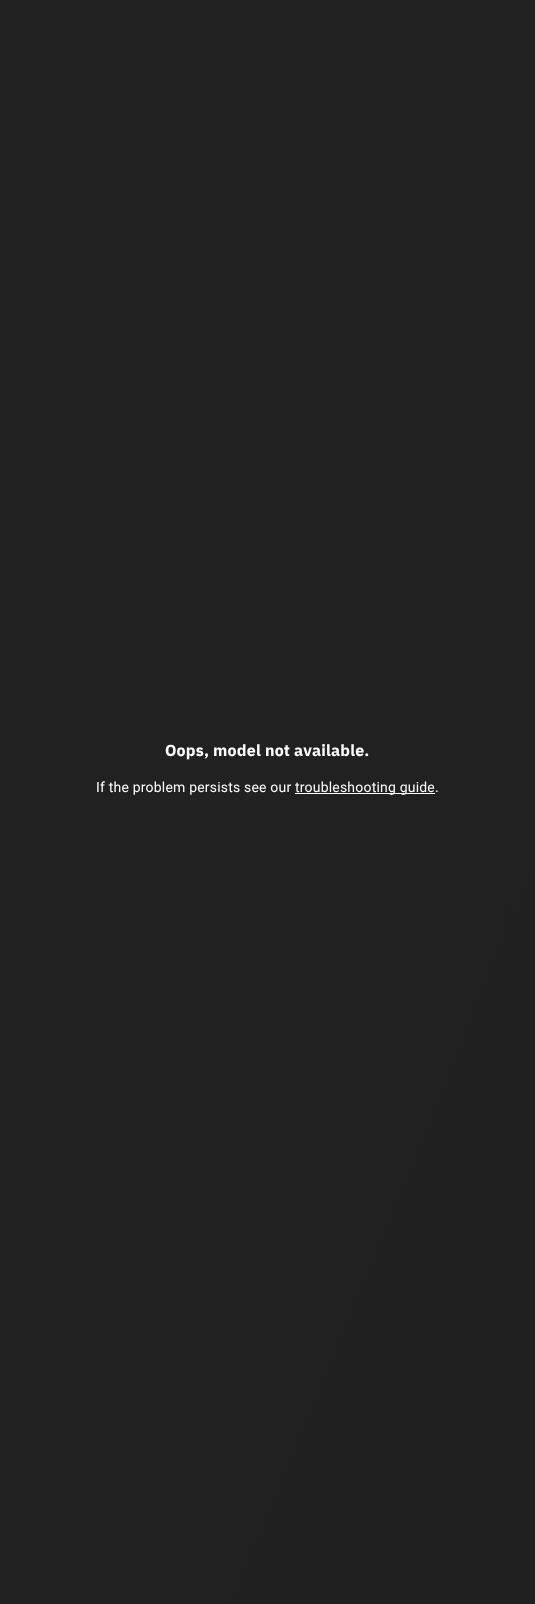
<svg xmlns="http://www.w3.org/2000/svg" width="535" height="1604">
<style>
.a{font:bold 16px IBM Plex Sans;letter-spacing:0.2px;fill:#fff}
.b{font:14px Roboto;letter-spacing:0.2px;fill:#fff}
</style>
<defs>
<linearGradient id="g1" gradientUnits="userSpaceOnUse" x1="-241" y1="597" x2="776" y2="1007"><stop offset="0" stop-color="#222"/><stop offset="1" stop-color="#202020"/></linearGradient>
</defs>
<rect width="100%" height="100%" fill="#fff"/>
<path fill="url(#g1)" d="M0 0h535v1604H0z"/>
<path fill="#fff" d="M295 793h140v1H295z"/>
<text class="a" x="165" y="756">Oops, model not available.</text>
<text class="b" x="96" y="792">If the problem persists see our</text>
<text class="b" x="295" y="792">troubleshooting guide.</text>
</svg>
